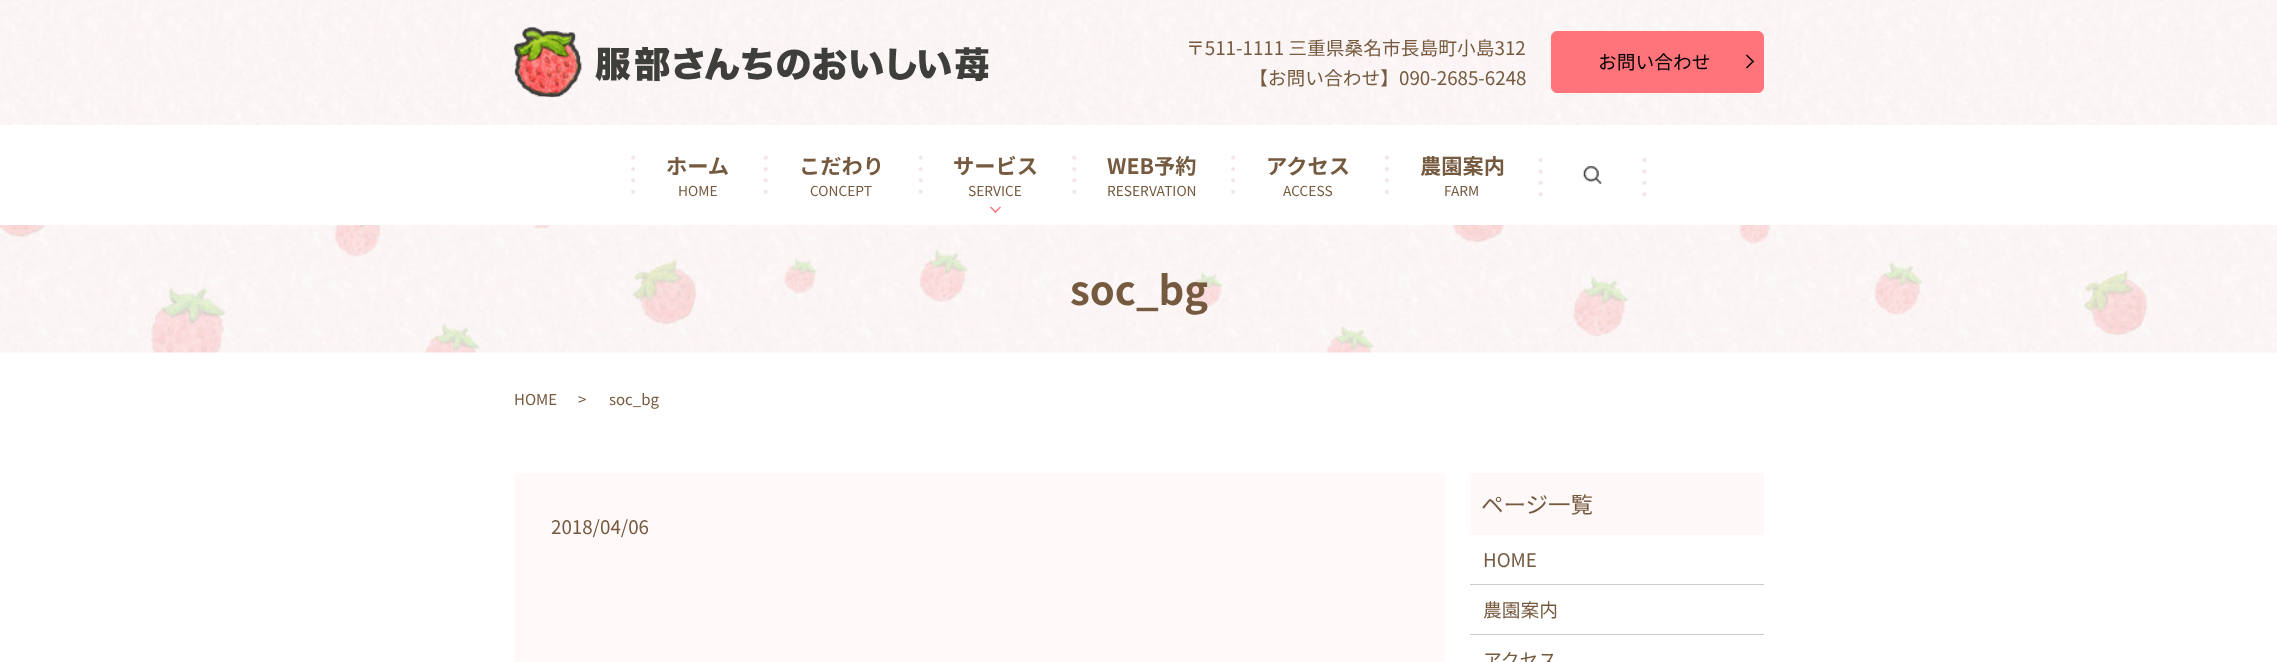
<svg xmlns="http://www.w3.org/2000/svg" width="2277" height="662">
<style>
.a{font:18.75px Noto Sans JP;fill:#755a3f}
.b{font:18.75px Noto Sans JP;fill:#000}
.c{font:bold 21.25px Noto Sans JP;fill:#755a3f}
.d{font:13.75px Noto Sans JP;fill:#755a3f}
.e{font:bold 40px Noto Sans JP;fill:#755a3f}
.f{font:15px Noto Sans JP;fill:#755a3f}
.g{font:22.5px Noto Sans JP;fill:#755a3f}
</style>
<rect width="100%" height="100%" fill="#fff"/>
<image href="1.png" x="0" y="0" width="2277" height="125"/>
<image href="2.png" x="514" y="26" width="475" height="72"/>
<rect fill="#ff747a" stroke="#ff747a" x="1551.5" y="31.5" width="212" height="61" rx="5.5"/>
<path fill="#000" d="M1747 54.5l7 7l-1 1l-7-7z"/>
<path fill="#000" d="M1753 60.5l1 1l-7 7l-1-1z"/>
<image href="3.png" x="631" y="155" width="4" height="39"/>
<image href="4.png" x="763" y="155" width="5" height="39"/>
<image href="4.png" x="918" y="155" width="5" height="39"/>
<path fill="#ff747a" d="M1001 207.5l-5.5 5.5l-1-1l5.5-5.5z"/>
<path fill="#ff747a" d="M996.5 212l-1 1l-5.5-5.5l1-1z"/>
<image href="5.png" x="1072" y="155" width="5" height="39"/>
<image href="3.png" x="1231" y="155" width="4" height="39"/>
<image href="6.png" x="1385" y="155" width="4" height="39"/>
<image href="7.png" x="1538" y="157" width="5" height="40"/>
<image href="8.png" x="1583" y="166" width="19" height="18"/>
<image href="9.png" x="1642" y="157" width="5" height="40"/>
<image href="10.png" x="0" y="225" width="2277" height="128"/>
<path fill="#fff9f9" d="M514 473h931v189H514z"/>
<path fill="#fff8f8" d="M1470 473h294v62H1470z"/>
<path fill="#ccc" d="M1470 584h294v1H1470z"/>
<path fill="#ccc" d="M1470 634h294v1H1470z"/>
<text class="a" x="1186" y="55">〒511-1111 三重県桑名市長島町小島312</text>
<text class="a" x="1249" y="85">【お問い合わせ】090-2685-6248</text>
<text class="b" x="1598" y="69">お問い合わせ</text>
<text class="c" x="666" y="174">ホーム</text>
<text class="d" x="678" y="196">HOME</text>
<text class="c" x="799" y="174">こだわり</text>
<text class="d" x="810" y="196">CONCEPT</text>
<text class="c" x="953" y="174">サービス</text>
<text class="d" x="968" y="196">SERVICE</text>
<text class="c" x="1107" y="174">WEB予約</text>
<text class="d" x="1107" y="196">RESERVATION</text>
<text class="c" x="1266" y="174">アクセス</text>
<text class="d" x="1283" y="196">ACCESS</text>
<text class="c" x="1420" y="174">農園案内</text>
<text class="d" x="1444" y="196">FARM</text>
<text class="e" x="1070" y="305">soc_bg</text>
<text class="f" x="514" y="405">HOME</text>
<text class="f" x="578" y="405">&gt;</text>
<text class="f" x="609" y="405">soc_bg</text>
<text class="a" x="551" y="534">2018/04/06</text>
<text class="g" x="1481" y="513">ページ一覧</text>
<text class="a" x="1483" y="567">HOME</text>
<text class="a" x="1483" y="617">農園案内</text>
<text class="a" x="1483" y="667">アクセス</text>
</svg>
